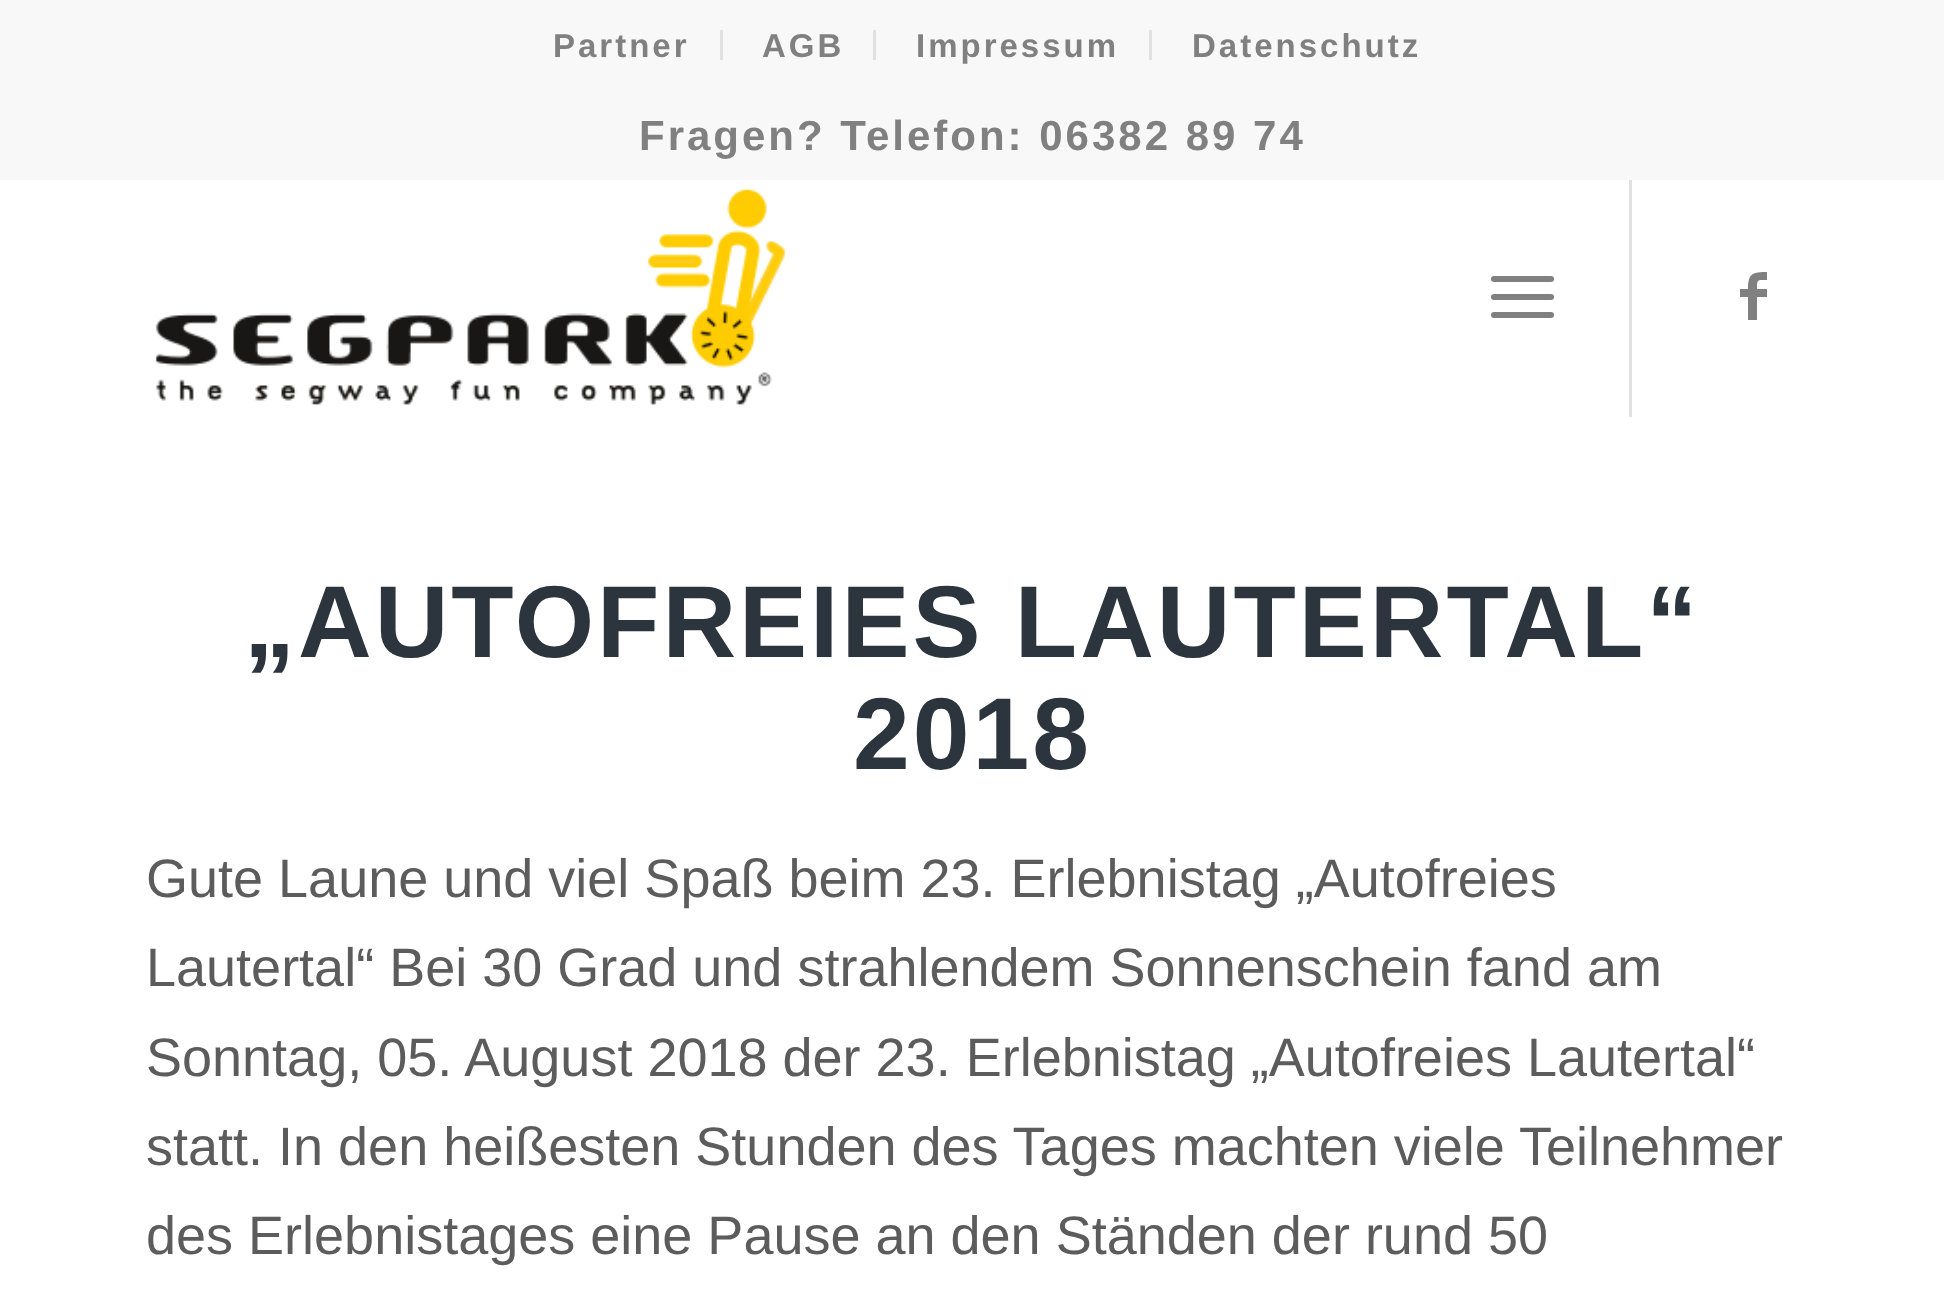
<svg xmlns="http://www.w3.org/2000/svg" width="1944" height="1294">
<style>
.a{font:bold 33px Liberation Sans;letter-spacing:3px;fill:#808080}
.b{font:bold 42px Liberation Sans;letter-spacing:3px;fill:#808080}
.c{font:bold 102px Liberation Sans;letter-spacing:3px;fill:#2c353d}
.d{font:54px Liberation Sans;fill:#5c5c5c}
</style>
<rect width="100%" height="100%" fill="#fff"/>
<path fill="#e1e1e1" d="M1629 177h3v240H1629z"/>
<path fill="#f8f8f8" d="M0 0h1944v180H0z"/>
<path fill="#e1e1e1" d="M720 30h3v30H720z"/>
<path fill="#e1e1e1" d="M873 30h3v30H873z"/>
<path fill="#e1e1e1" d="M1149 30h3v30H1149z"/>
<image href="1.png" x="155" y="189" width="631" height="216"/>
<rect fill="#808080" x="1491" y="294" width="63" height="6" rx="3"/>
<rect fill="#808080" x="1491" y="276" width="63" height="6" rx="3"/>
<rect fill="#808080" x="1491" y="312" width="63" height="6" rx="3"/>
<path fill="#808080" d="M1767 280c-10 0-10-1-10 9h10v8h-10v23h-9v-23h-8v-8h8c0-16 5-17 19-17z"/>
<text class="a" x="553" y="57">Partner</text>
<text class="a" x="762" y="57">AGB</text>
<text class="a" x="916" y="57">Impressum</text>
<text class="a" x="1192" y="57">Datenschutz</text>
<text class="b" x="639" y="150">Fragen? Telefon: 06382 89 74</text>
<text class="c" x="244" y="657">„AUTOFREIES LAUTERTAL“</text>
<text class="c" x="853" y="769">2018</text>
<text class="d" x="146" y="897">Gute Laune und viel Spaß beim 23. Erlebnistag „Autofreies</text>
<text class="d" x="146" y="986">Lautertal“ Bei 30 Grad und strahlendem Sonnenschein fand am</text>
<text class="d" x="146" y="1076">Sonntag, 05. August 2018 der 23. Erlebnistag „Autofreies Lautertal“</text>
<text class="d" x="146" y="1165">statt. In den heißesten Stunden des Tages machten viele Teilnehmer</text>
<text class="d" x="146" y="1254">des Erlebnistages eine Pause an den Ständen der rund 50</text>
</svg>
